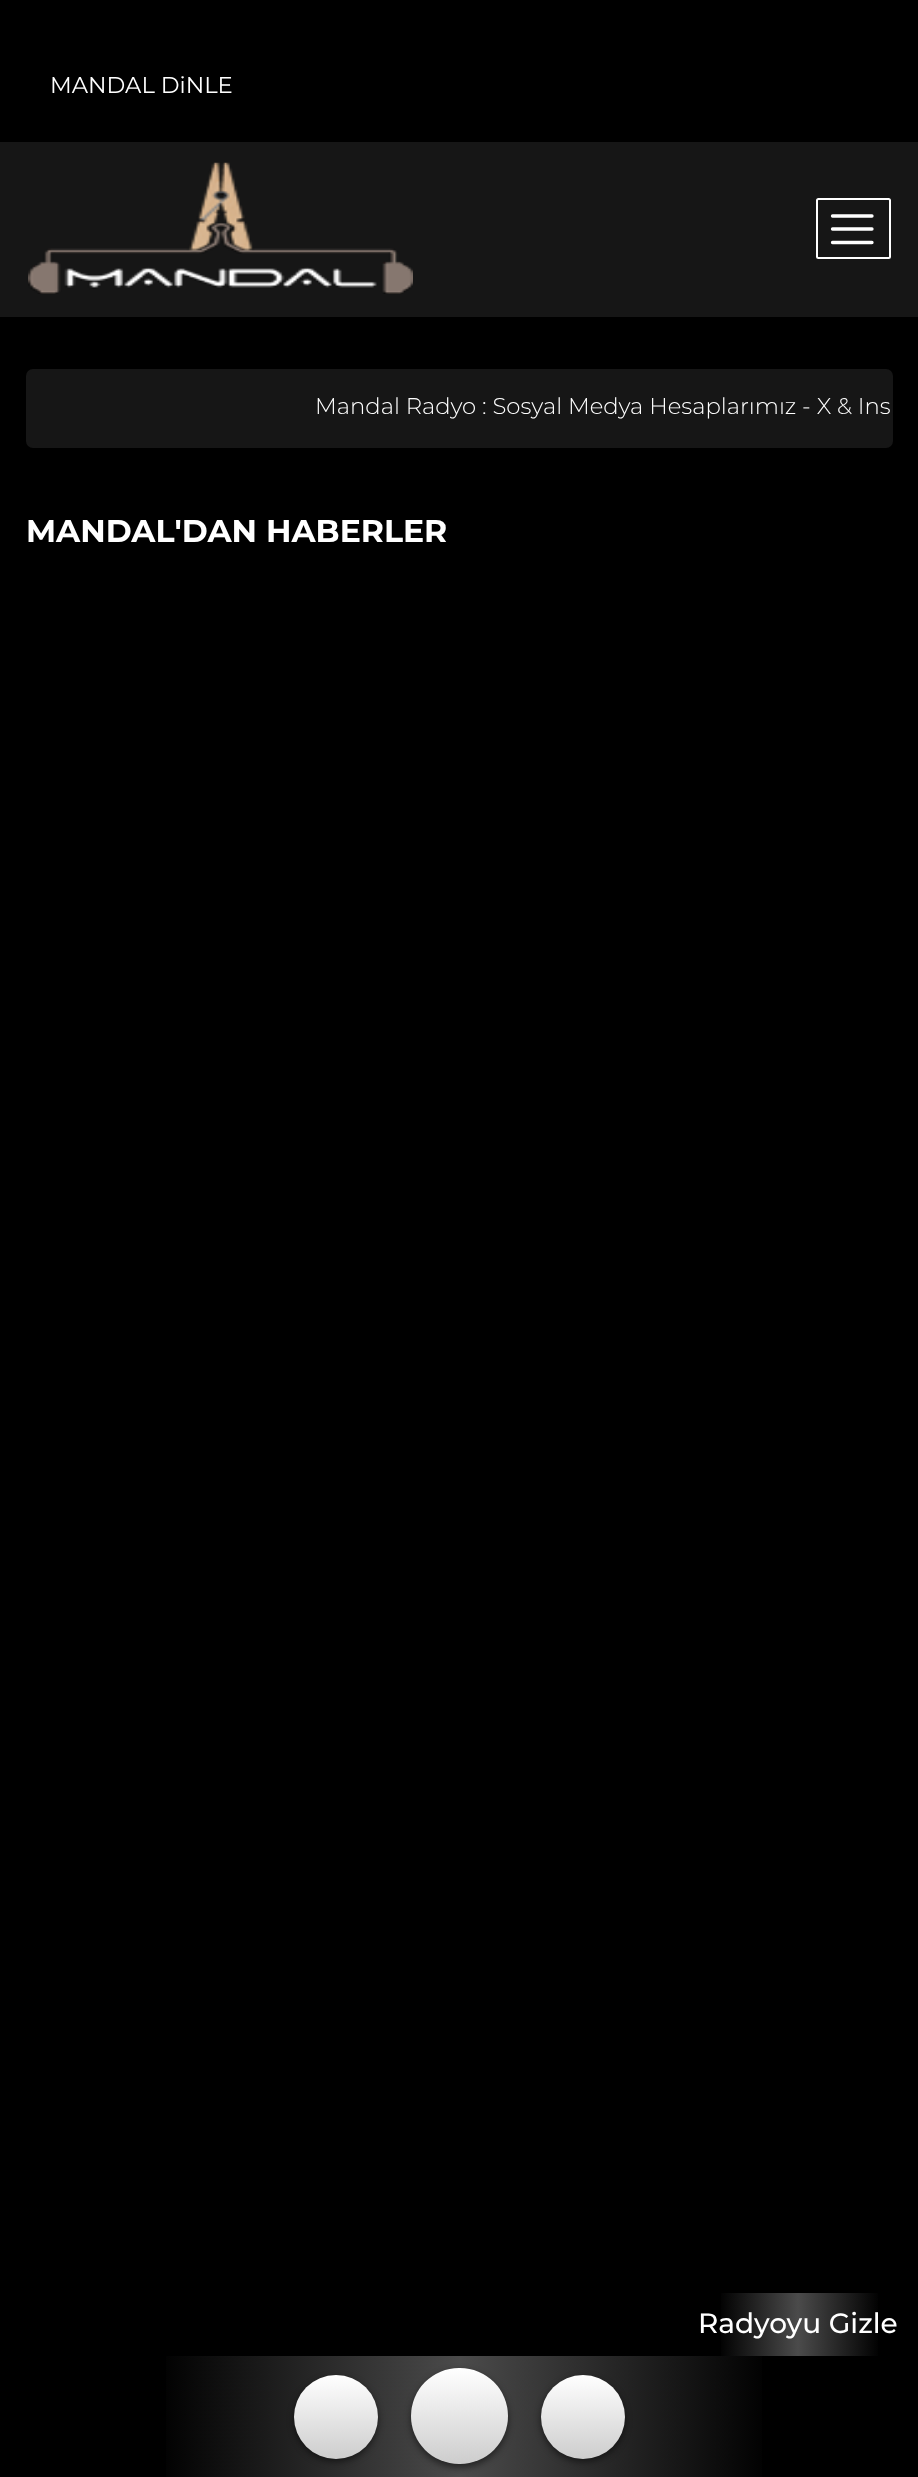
<svg xmlns="http://www.w3.org/2000/svg" width="918" height="2477">
<style>
.a{font:22.75px Montserrat;fill:#fff}
.b{font:300 22.75px Montserrat;fill:#fff}
.c{font:bold 31.5px Montserrat;fill:#fff}
.d{font:500 28px Montserrat;fill:#fff}
</style>
<defs>
<linearGradient id="g1" gradientUnits="userSpaceOnUse" x1="0" y1="2417" x2="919" y2="2417"><stop offset="0.17" stop-color="#000"/><stop offset="0.5" stop-color="#4b4b4b"/><stop offset="0.84" stop-color="#000"/></linearGradient>
<linearGradient id="g2" gradientUnits="userSpaceOnUse" x1="677" y1="2324" x2="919" y2="2324"><stop offset="0.17" stop-color="#000"/><stop offset="0.5" stop-color="#4b4b4b"/><stop offset="0.84" stop-color="#000"/></linearGradient>
<linearGradient id="g3" gradientUnits="userSpaceOnUse" x1="336" y1="2375" x2="336" y2="2459"><stop offset="0" stop-color="#fff"/><stop offset="1" stop-color="#cdcdcd"/></linearGradient>
<linearGradient id="g4" gradientUnits="userSpaceOnUse" x1="459" y1="2368" x2="459" y2="2464"><stop offset="0" stop-color="#fff"/><stop offset="1" stop-color="#cdcdcd"/></linearGradient>
<linearGradient id="g5" gradientUnits="userSpaceOnUse" x1="583" y1="2375" x2="583" y2="2459"><stop offset="0" stop-color="#fff"/><stop offset="1" stop-color="#cdcdcd"/></linearGradient>
</defs>
<rect width="100%" height="100%" fill="#000"/>
<path fill="#161616" d="M0 142h918v175H0z"/>
<image href="1.png" x="28" y="162" width="385" height="132"/>
<rect fill="none" stroke="#fff" stroke-width="2" x="817" y="199" width="73" height="59" rx="1.5"/>
<path fill="none" stroke="#fff" stroke-width="3.3" stroke-linecap="round" d="M832.5 216h39.5m-39.5 13h39.5m-39.5 13.5h39.5"/>
<rect fill="#161616" x="26" y="369" width="867" height="79" rx="7"/>
<path fill="url(#g1)" d="M166 2356h596v121H166z"/>
<path fill="url(#g2)" d="M721 2293h157v63H721z"/>
<rect fill="#00000080" filter="blur(3.5px)" x="294" y="2378" width="84" height="84" rx="42"/>
<circle fill="url(#g3)" cx="336" cy="2417" r="42"/>
<rect fill="#00000080" filter="blur(3.5px)" x="411" y="2371" width="97" height="97" rx="48.5"/>
<rect fill="url(#g4)" x="411" y="2368" width="97" height="96" rx="48"/>
<rect fill="#00000080" filter="blur(3.5px)" x="541" y="2378" width="84" height="84" rx="42"/>
<circle fill="url(#g5)" cx="583" cy="2417" r="42"/>
<text class="a" x="50" y="93">MANDAL DiNLE</text>
<text class="b" x="315" y="414">Mandal Radyo : Sosyal Medya Hesaplarımız - X &amp; Ins</text>
<text class="c" x="26" y="542">MANDAL'DAN HABERLER</text>
<text class="d" x="698" y="2333">Radyoyu Gizle</text>
</svg>
